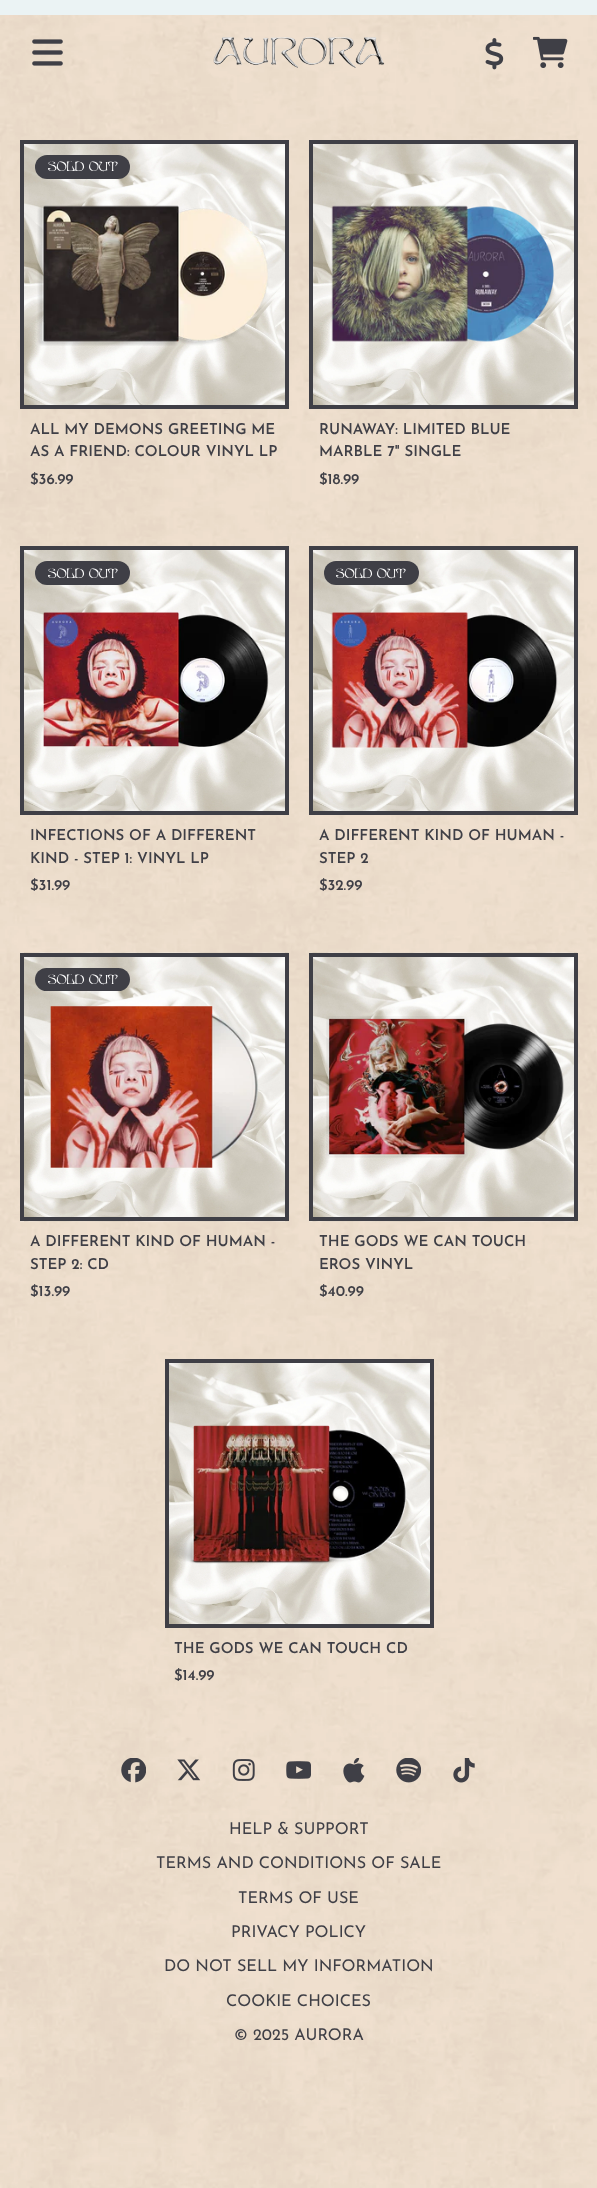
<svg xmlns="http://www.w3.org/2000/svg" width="597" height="2188">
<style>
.a{font:12.5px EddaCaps;fill:#fff}
.b{font:600 15px Josefin Sans;fill:#3f3f46}
.c{font:16.25px Josefin Sans;fill:#3f3f46}
</style>
<rect width="100%" height="100%" fill="#fff"/>
<path fill="#ebf3f4" d="M0 0h597v15H0z"/>
<image href="1.png" x="0" y="15" width="597" height="2173"/>
<image href="2.png" x="32" y="39" width="31" height="27"/>
<image href="3.png" x="213" y="37" width="172" height="31"/>
<image href="4.png" x="485" y="38" width="19" height="32"/>
<image href="5.png" x="533" y="36" width="35" height="32"/>
<image href="6.png" x="24" y="144" width="261" height="261"/>
<path fill="none" stroke="#3f3f46" stroke-width="4" d="M22 142h265v265H22z"/>
<image href="7.png" x="37" y="205" width="231" height="141"/>
<rect fill="#3f3f46" x="35" y="155" width="95" height="24" rx="12"/>
<image href="8.png" x="313" y="144" width="261" height="261"/>
<path fill="none" stroke="#3f3f46" stroke-width="4" d="M311 142h265v265H311z"/>
<image href="9.png" x="331" y="205" width="223" height="137"/>
<image href="10.png" x="24" y="550" width="261" height="261"/>
<path fill="none" stroke="#3f3f46" stroke-width="4" d="M22 548h265v265H22z"/>
<image href="11.png" x="43" y="612" width="226" height="135"/>
<rect fill="#3f3f46" x="35" y="561" width="95" height="24" rx="12"/>
<image href="12.png" x="313" y="550" width="261" height="261"/>
<path fill="none" stroke="#3f3f46" stroke-width="4" d="M311 548h265v265H311z"/>
<image href="13.png" x="331" y="612" width="227" height="136"/>
<rect fill="#3f3f46" x="324" y="561" width="95" height="24" rx="12"/>
<image href="14.png" x="20" y="952" width="269" height="270"/>
<path fill="none" stroke="#3f3f46" stroke-width="4" d="M22 955h265v264H22z"/>
<image href="15.png" x="50" y="1006" width="208" height="162"/>
<rect fill="#3f3f46" x="35" y="968" width="95" height="23" rx="11.5"/>
<image href="16.png" x="309" y="952" width="269" height="270"/>
<path fill="none" stroke="#3f3f46" stroke-width="4" d="M311 955h265v264H311z"/>
<image href="17.png" x="326" y="1016" width="238" height="142"/>
<image href="18.png" x="169" y="1363" width="261" height="261"/>
<path fill="none" stroke="#3f3f46" stroke-width="4" d="M167 1361h265v265H167z"/>
<image href="19.png" x="169" y="1425" width="238" height="139"/>
<image href="20.png" x="121" y="1758" width="25" height="25"/>
<image href="21.png" x="177" y="1759" width="24" height="22"/>
<image href="22.png" x="232" y="1759" width="23" height="22"/>
<image href="23.png" x="286" y="1761" width="25" height="18"/>
<image href="24.png" x="343" y="1758" width="22" height="25"/>
<image href="25.png" x="396" y="1758" width="25" height="25"/>
<image href="26.png" x="453" y="1758" width="22" height="25"/>
<text class="a" x="48" y="171">SOLD OUT</text>
<text class="b" x="30" y="434">ALL MY DEMONS GREETING ME</text>
<text class="b" x="30" y="456">AS A FRIEND: COLOUR VINYL LP</text>
<text class="b" x="30" y="484">$36.99</text>
<text class="b" x="319" y="434">RUNAWAY: LIMITED BLUE</text>
<text class="b" x="319" y="456">MARBLE 7" SINGLE</text>
<text class="b" x="319" y="484">$18.99</text>
<text class="a" x="48" y="578">SOLD OUT</text>
<text class="b" x="30" y="840">INFECTIONS OF A DIFFERENT</text>
<text class="b" x="30" y="863">KIND - STEP 1: VINYL LP</text>
<text class="b" x="30" y="890">$31.99</text>
<text class="a" x="336" y="578">SOLD OUT</text>
<text class="b" x="319" y="840">A DIFFERENT KIND OF HUMAN -</text>
<text class="b" x="319" y="863">STEP 2</text>
<text class="b" x="319" y="890">$32.99</text>
<text class="a" x="48" y="984">SOLD OUT</text>
<text class="b" x="30" y="1246">A DIFFERENT KIND OF HUMAN -</text>
<text class="b" x="30" y="1269">STEP 2: CD</text>
<text class="b" x="30" y="1296">$13.99</text>
<text class="b" x="319" y="1246">THE GODS WE CAN TOUCH</text>
<text class="b" x="319" y="1269">EROS VINYL</text>
<text class="b" x="319" y="1296">$40.99</text>
<text class="b" x="174" y="1653">THE GODS WE CAN TOUCH CD</text>
<text class="b" x="174" y="1680">$14.99</text>
<text class="c" x="229" y="1834">HELP &amp; SUPPORT</text>
<text class="c" x="156" y="1868">TERMS AND CONDITIONS OF SALE</text>
<text class="c" x="238" y="1903">TERMS OF USE</text>
<text class="c" x="231" y="1937">PRIVACY POLICY</text>
<text class="c" x="164" y="1971">DO NOT SELL MY INFORMATION</text>
<text class="c" x="226" y="2006">COOKIE CHOICES</text>
<text class="c" x="234" y="2040">© 2025 AURORA</text>
</svg>
